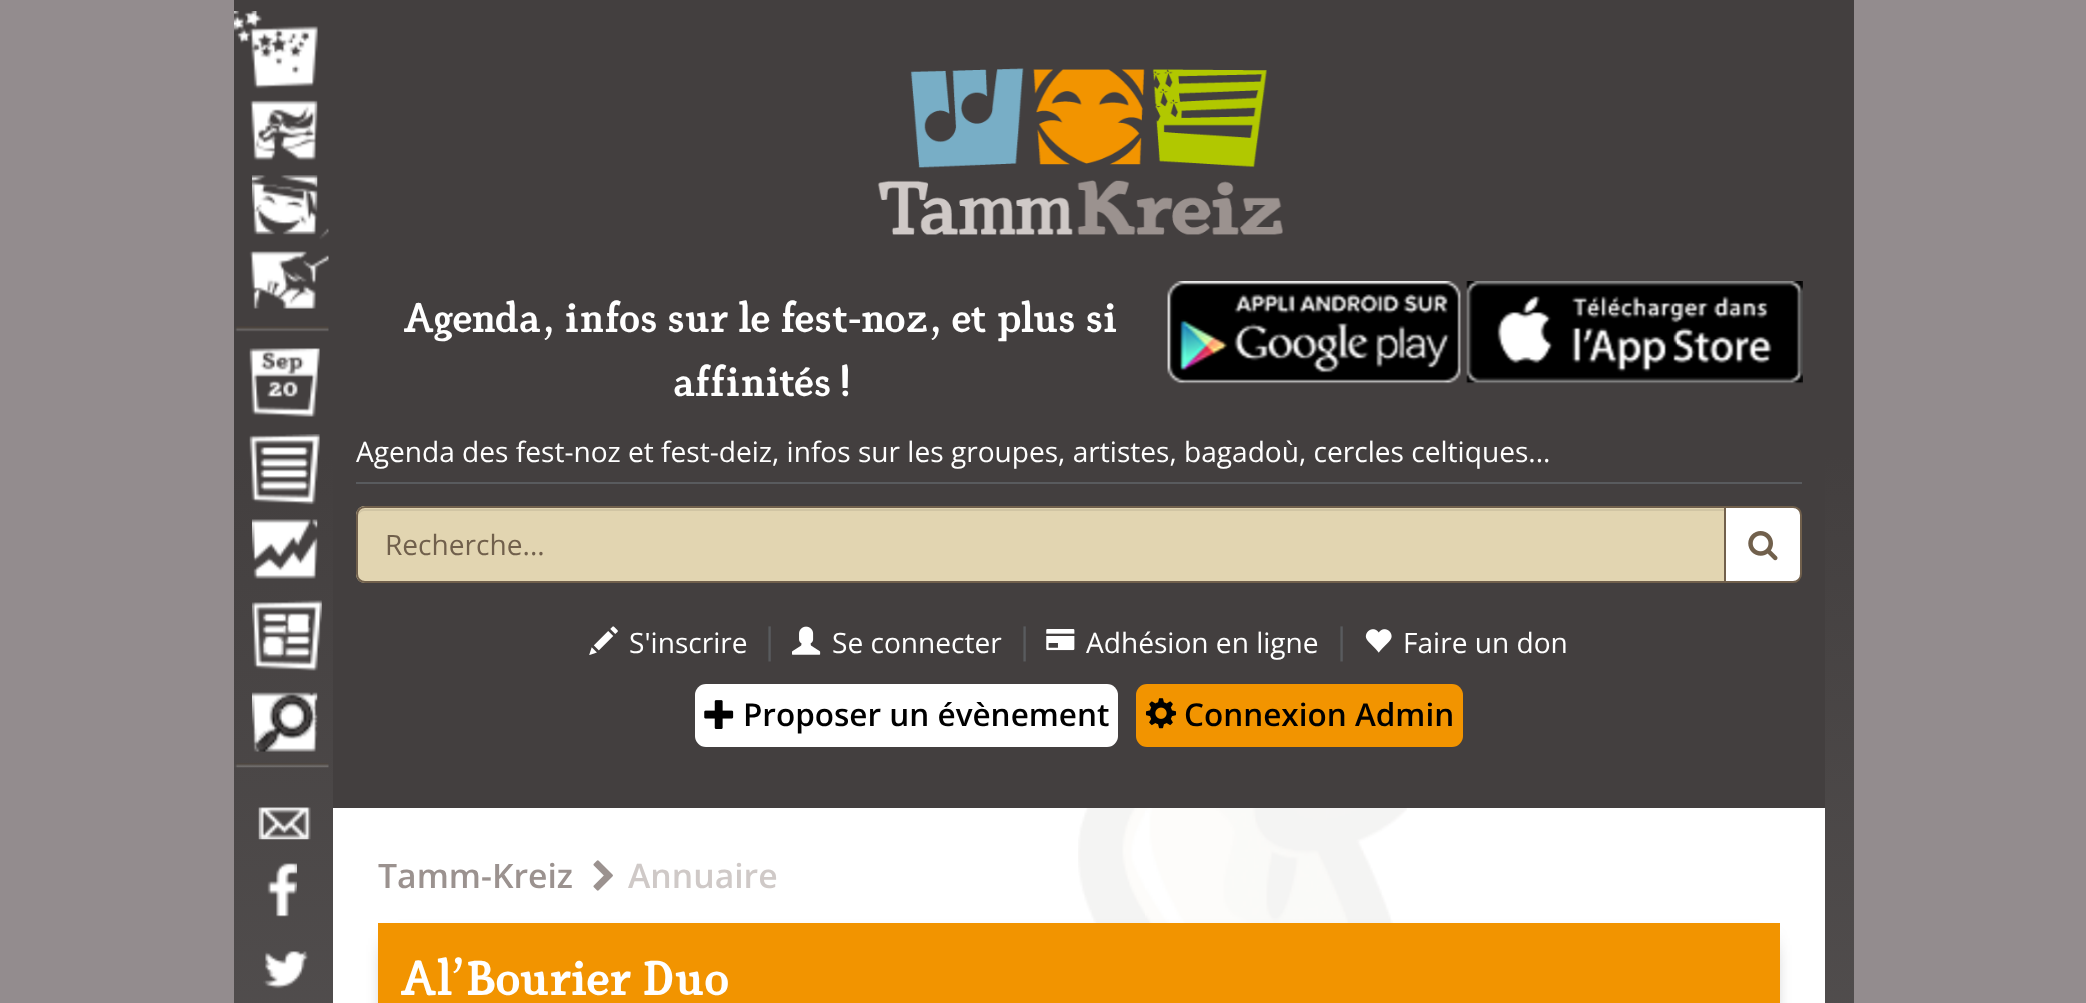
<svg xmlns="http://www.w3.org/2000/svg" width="2086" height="1003">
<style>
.a{font:500 45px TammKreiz;fill:#fff}
.b{font:28.1px Open Sans;fill:#fff}
.c{font:28.1px Open Sans;fill:#71604c}
.d{font:35px Open Sans;fill:#595b5e}
.e{font:600 31.5px Open Sans;fill:#000}
.f{font:600 33.75px Open Sans;fill:#9b928f}
.g{font:600 33.75px Open Sans;fill:#cfc9c7}
.h{font:500 53.5px TammKreiz;fill:#fff}
</style>
<defs>
<linearGradient id="g1" gradientUnits="userSpaceOnUse" x1="283" y1="0" x2="284" y2="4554"><stop offset="0.1" stop-color="#433f3f"/><stop offset="0.4" stop-color="#636060"/></linearGradient>
<linearGradient id="g2" gradientUnits="userSpaceOnUse" x1="1839" y1="0" x2="1839" y2="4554"><stop offset="0.1" stop-color="#433f3f"/><stop offset="0.4" stop-color="#636060"/></linearGradient>
</defs>
<rect width="100%" height="100%" fill="#938c8e"/>
<path fill="url(#g1)" d="M234 0h99v1003H234z"/>
<image href="1.png" x="234" y="11" width="84" height="78"/>
<image href="2.png" x="250" y="100" width="68" height="61"/>
<image href="3.png" x="252" y="175" width="66" height="60"/>
<image href="4.png" x="249" y="228" width="80" height="81"/>
<image href="5.png" x="234" y="326" width="95" height="6"/>
<image href="6.png" x="249" y="348" width="71" height="69"/>
<image href="7.png" x="249" y="434" width="71" height="71"/>
<image href="8.png" x="252" y="519" width="66" height="60"/>
<image href="9.png" x="252" y="600" width="70" height="71"/>
<image href="10.png" x="252" y="692" width="66" height="60"/>
<image href="11.png" x="234" y="763" width="95" height="5"/>
<image href="12.png" x="258" y="807" width="53" height="33"/>
<image href="13.png" x="267" y="863" width="30" height="54"/>
<image href="14.png" x="263" y="951" width="46" height="38"/>
<path fill="#fff" d="M333 808h1492v195H333z"/>
<path fill="#433f3f" d="M333 0h1492v808H333z"/>
<image href="15.png" x="877" y="68" width="406" height="167"/>
<image href="16.png" x="1167" y="281" width="294" height="103"/>
<image href="17.png" x="1466" y="281" width="337" height="103"/>
<path fill="#595b5e" d="M356 482h1446v2H356z"/>
<path fill="#fff" stroke="#71604c" stroke-width="2" d="M1725 507h68c4.5 0 8 3.5 8 8v59c0 4.5-3.5 8-8 8h-68z"/>
<path fill="#e2d5b1" d="M365 506h1361v77h-1361c-5 0-9-4-9-9v-59c0-5 4-9 9-9z"/>
<path fill="#d1c5a4" d="M364 511h1360v-2h-1359c-4 0-7 3-7 7v2c0-4 3-7 6-7z"/>
<path fill="none" stroke="#71604c" stroke-width="2" d="M365 507h1360v75h-1360c-4.5 0-8-3.5-8-8v-59c0-4.5 3.5-8 8-8z"/>
<image href="18.png" x="1748" y="531" width="30" height="30"/>
<image href="19.png" x="589" y="626" width="29" height="29"/>
<image href="20.png" x="792" y="626" width="29" height="29"/>
<image href="21.png" x="1046" y="629" width="29" height="22"/>
<image href="22.png" x="1365" y="629" width="27" height="24"/>
<rect fill="#fff" x="695" y="684" width="423" height="63" rx="11"/>
<image href="23.png" x="704" y="700" width="30" height="29"/>
<rect fill="#f29400" x="1136" y="684" width="327" height="63" rx="11"/>
<image href="24.png" x="1145" y="698" width="32" height="31"/>
<image href="25.png" x="1078" y="808" width="329" height="115"/>
<image href="26.png" x="593" y="860" width="20" height="31"/>
<path fill="#000000bf" filter="blur(11px)" d="M392 945h1374v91H392z"/>
<path fill="#f29400" d="M378 923h1402v80H378z"/>
<path fill="url(#g2)" d="M1825 0h29v1003H1825z"/>
<text class="a" x="404" y="332">Agenda, infos sur le fest-noz, et plus si</text>
<text class="a" x="673" y="396">affinités !</text>
<text class="b" x="356" y="462">Agenda des fest-noz et fest-deiz, infos sur les groupes, artistes, bagadoù, cercles celtiques...</text>
<text class="c" x="385" y="555">Recherche...</text>
<text class="b" x="629" y="653">S'inscrire</text>
<text class="d" x="760" y="653">|</text>
<text class="b" x="832" y="653">Se connecter</text>
<text class="d" x="1015" y="653">|</text>
<text class="b" x="1086" y="653">Adhésion en ligne</text>
<text class="d" x="1332" y="653">|</text>
<text class="b" x="1403" y="653">Faire un don</text>
<text class="e" x="743" y="726">Proposer un évènement</text>
<text class="e" x="1184" y="726">Connexion Admin</text>
<text class="f" x="378" y="888">Tamm-Kreiz</text>
<text class="g" x="628" y="888">Annuaire</text>
<text class="h" x="401" y="995">Al'Bourier Duo</text>
</svg>
